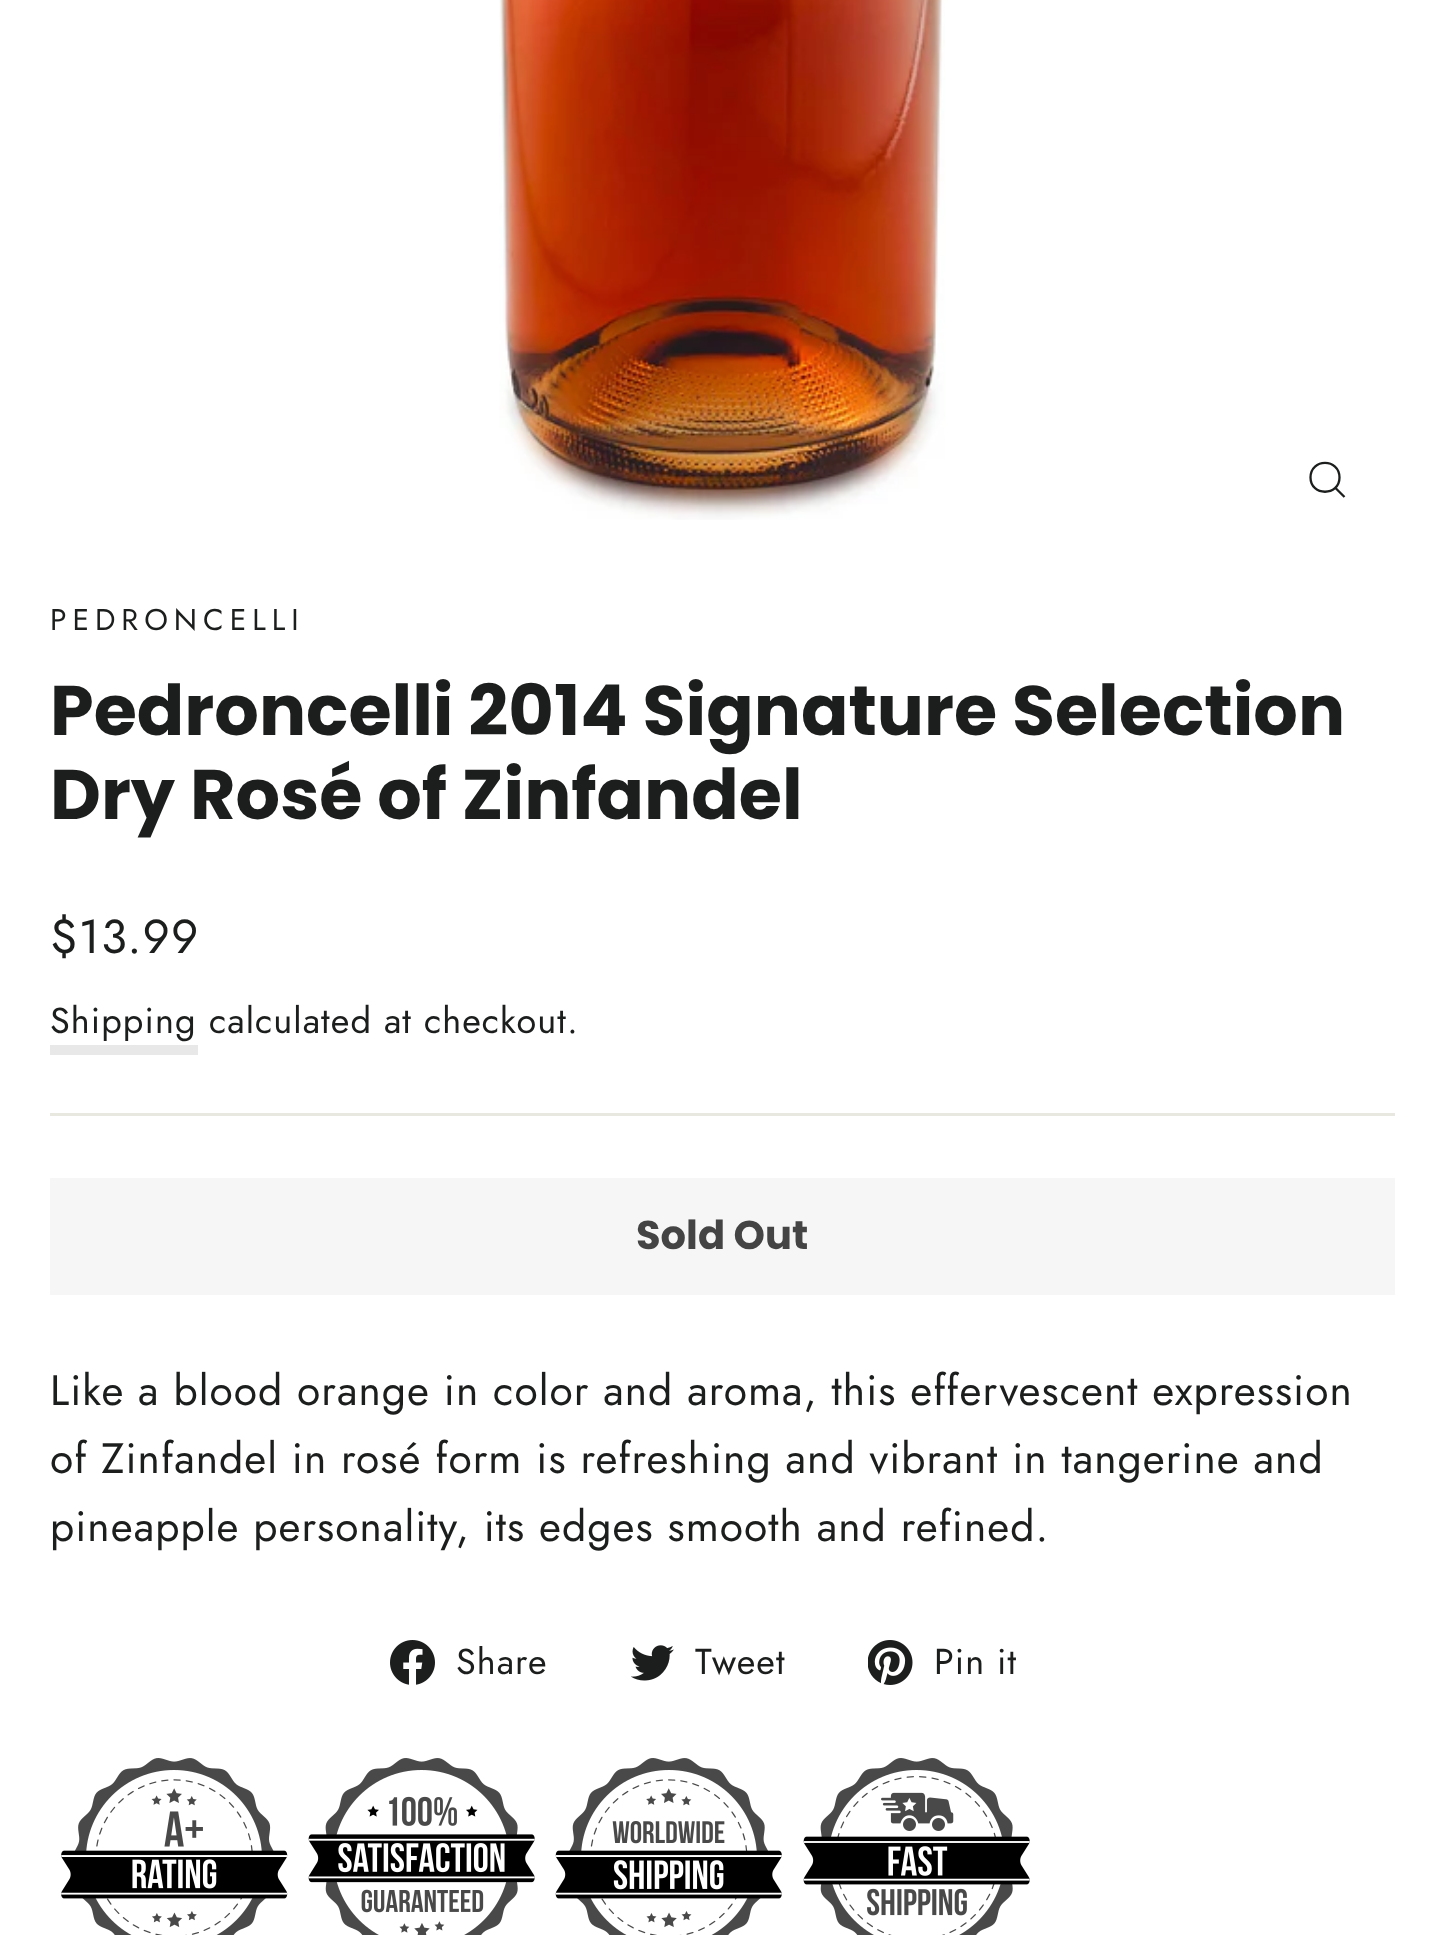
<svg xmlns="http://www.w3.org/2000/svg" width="1443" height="1935">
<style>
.a{font:30px Jost;letter-spacing:6px;fill:#1c1d1d}
.b{font:bold 70px Poppins;fill:#1c1d1d}
.c{font:47.5px Jost;letter-spacing:1.05px;fill:#1c1d1d}
.d{font:36.1px Jost;letter-spacing:1.05px;fill:#1c1d1d}
.e{font:bold 40px Poppins;fill:#444}
.f{font:42.5px Jost;letter-spacing:1.05px;fill:#1c1d1d}
.g{font:36px Jost;letter-spacing:1.05px;fill:#1c1d1d}
</style>
<rect width="100%" height="100%" fill="#fff"/>
<image href="1.png" x="499" y="0" width="446" height="520"/>
<path fill="none" stroke="#1c1d1d" stroke-width="2.3" d="M1339.5 477.5c0 19-29 19-29 0c0-19.5 29-19.5 29 0zm5 19.5l-9-9"/>
<path fill="#e8e8e8" d="M50 1045h148v10H50z"/>
<path fill="#e8e8e1" d="M50 1113h1345v3H50z"/>
<path fill="#f6f6f6" d="M50 1178h1345v117H50z"/>
<image href="2.png" x="390" y="1640" width="45" height="45"/>
<image href="3.png" x="631" y="1645" width="43" height="36"/>
<image href="4.png" x="868" y="1640" width="45" height="45"/>
<image href="5.png" x="61" y="1758" width="227" height="177"/>
<image href="6.png" x="308" y="1758" width="227" height="177"/>
<image href="7.png" x="555" y="1758" width="227" height="177"/>
<image href="8.png" x="803" y="1758" width="227" height="177"/>
<text class="a" x="50" y="630">PEDRONCELLI</text>
<text class="b" x="50" y="735">Pedroncelli 2014 Signature Selection</text>
<text class="b" x="50" y="819">Dry Rosé of Zinfandel</text>
<text class="c" x="50" y="953">$13.99</text>
<text class="d" x="50" y="1033">Shipping</text>
<text class="d" x="209" y="1033">calculated at checkout.</text>
<text class="e" x="636" y="1249">Sold Out</text>
<text class="f" x="50" y="1405">Like a blood orange in color and aroma, this effervescent expression</text>
<text class="f" x="50" y="1473">of Zinfandel in rosé form is refreshing and vibrant in tangerine and</text>
<text class="f" x="50" y="1541">pineapple personality, its edges smooth and refined.</text>
<text class="g" x="456" y="1674">Share</text>
<text class="g" x="695" y="1674">Tweet</text>
<text class="g" x="934" y="1674">Pin it</text>
</svg>
